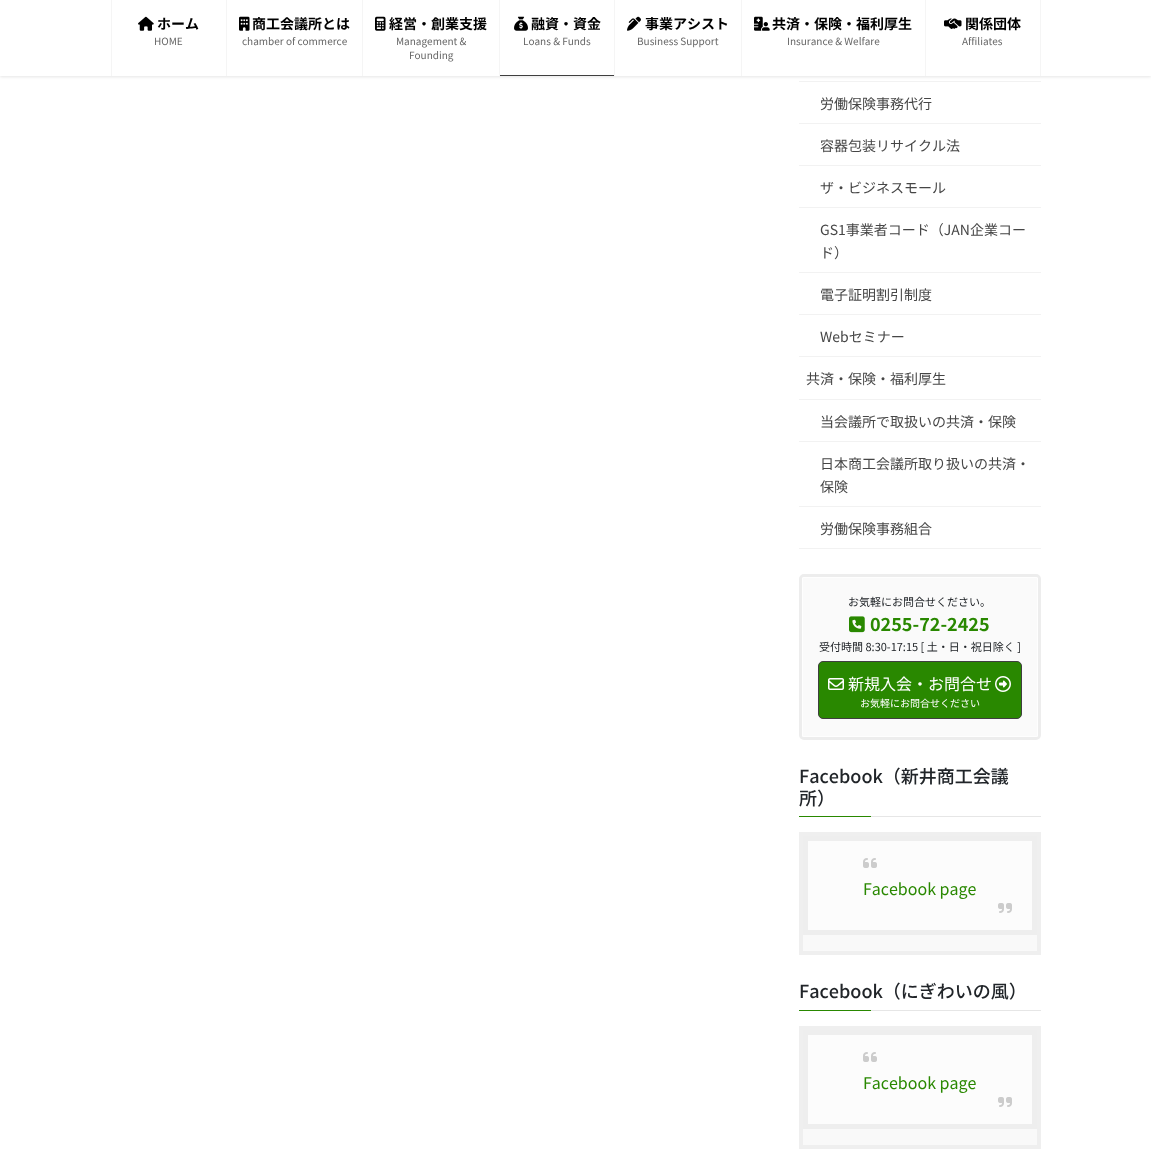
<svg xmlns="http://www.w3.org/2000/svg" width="1151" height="1168">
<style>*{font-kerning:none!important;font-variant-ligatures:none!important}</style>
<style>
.a{font:bold 14px Noto Sans JP;fill:#000}
.b{font:10px Noto Sans JP;fill:#666}
.c{font:14px Noto Sans JP;fill:#464646}
.d{font:11px Noto Sans JP;fill:#212529}
.e{font:bold 18px Noto Sans JP;fill:#298800}
.f{font:16px Noto Sans JP;fill:#fff}
.g{font:10px Noto Sans JP;fill:#fff}
.h{font:500 18px Noto Sans JP;fill:#212529}
.i{font:16px Noto Sans JP;fill:#298800}
</style>
<rect width="100%" height="100%" fill="#fff"/>
<path fill="#f2f2f2" d="M799 81h242v1H799z"/>
<path fill="#0000001a" filter="blur(1.5px)" d="M0 1h1151v76H0z"/>
<path fill="#fff" d="M0 0h1151v76H0z"/>
<path fill="#f5f5f5" d="M111 0h1v76H111z"/>
<image href="1.png" x="138" y="16" width="16" height="15"/>
<path fill="#f5f5f5" d="M226 0h1v76H226z"/>
<image href="2.png" x="239" y="16" width="11" height="15"/>
<path fill="#f5f5f5" d="M362 0h1v76H362z"/>
<image href="3.png" x="375" y="16" width="11" height="15"/>
<path fill="#f5f5f5" d="M499 0h1v76H499z"/>
<image href="4.png" x="514" y="16" width="14" height="15"/>
<path fill="#3f3f3f" d="M500 75h114v1H500z"/>
<path fill="#f5f5f5" d="M614 0h1v76H614z"/>
<image href="5.png" x="627" y="16" width="14" height="15"/>
<path fill="#f5f5f5" d="M741 0h1v76H741z"/>
<image href="6.png" x="754" y="16" width="16" height="15"/>
<path fill="#f5f5f5" d="M1040 0h1v76H1040z"/>
<path fill="#f5f5f5" d="M925 0h1v76H925z"/>
<image href="7.png" x="944" y="18" width="18" height="11"/>
<path fill="#f2f2f2" d="M799 123h242v1H799z"/>
<path fill="#f2f2f2" d="M799 165h242v1H799z"/>
<path fill="#f2f2f2" d="M799 207h242v1H799z"/>
<path fill="#f2f2f2" d="M799 272h242v1H799z"/>
<path fill="#f2f2f2" d="M799 314h242v1H799z"/>
<path fill="#f2f2f2" d="M799 356h242v1H799z"/>
<path fill="#f2f2f2" d="M799 399h242v1H799z"/>
<path fill="#f2f2f2" d="M799 441h242v1H799z"/>
<path fill="#f2f2f2" d="M799 506h242v1H799z"/>
<path fill="#f2f2f2" d="M799 548h242v1H799z"/>
<rect fill="none" stroke="#ededed" stroke-width="3" x="800.5" y="575.5" width="239" height="163" rx="3.5"/>
<rect fill="#fafafa" x="802" y="577" width="236" height="160" rx="2"/>
<path fill="#fefefe" fill-rule="evenodd" d="M804 577c-1 0-2 1-2 2v156c0 1 1 2 2 2h232c1 0 2-1 2-2v-156c0-1-1-2-2-2zm-1 1v158h234v-158z"/>
<image href="8.png" x="849" y="616" width="16" height="17"/>
<rect fill="#298800" stroke="#3f3f3f" x="818.5" y="661.5" width="203" height="57" rx="4.5"/>
<image href="9.png" x="828" y="678" width="16" height="12"/>
<image href="10.png" x="995" y="676" width="16" height="16"/>
<path fill="#e6e6e6" d="M871 816h170v1H871z"/>
<path fill="#298800" d="M799 816h72v1H799z"/>
<path fill="#f9f9f9" d="M803 935h234v16H803z"/>
<path fill="none" stroke="#efefef" stroke-width="4" d="M801 834h238v119H801z"/>
<path fill="#fcfcfc" stroke="#eee" stroke-width="5" d="M805.5 838.5h229v94H805.5z"/>
<image href="11.png" x="863" y="858" width="14" height="10"/>
<image href="12.png" x="998" y="903" width="14" height="10"/>
<path fill="#e6e6e6" d="M871 1010h170v1H871z"/>
<path fill="#298800" d="M799 1010h72v1H799z"/>
<path fill="#f9f9f9" d="M803 1129h234v16H803z"/>
<path fill="none" stroke="#efefef" stroke-width="4" d="M801 1028h238v119H801z"/>
<path fill="#fcfcfc" stroke="#eee" stroke-width="5" d="M805.5 1032.5h229v94H805.5z"/>
<image href="11.png" x="863" y="1052" width="14" height="10"/>
<image href="12.png" x="998" y="1097" width="14" height="10"/>
<text class="a" x="157" y="29">ホーム</text>
<text class="b" x="154" y="45">HOME</text>
<text class="a" x="252" y="29">商工会議所とは</text>
<text class="b" x="242" y="45">chamber of commerce</text>
<text class="a" x="389" y="29">経営・創業支援</text>
<text class="b" x="396" y="45">Management &amp;</text>
<text class="b" x="409" y="59">Founding</text>
<text class="a" x="531" y="29">融資・資金</text>
<text class="b" x="523" y="45">Loans &amp; Funds</text>
<text class="a" x="645" y="29">事業アシスト</text>
<text class="b" x="637" y="45">Business Support</text>
<text class="a" x="772" y="29">共済・保険・福利厚生</text>
<text class="b" x="787" y="45">Insurance &amp; Welfare</text>
<text class="a" x="965" y="29">関係団体</text>
<text class="b" x="962" y="45">Affiliates</text>
<text class="c" x="820" y="109">労働保険事務代行</text>
<text class="c" x="820" y="151">容器包装リサイクル法</text>
<text class="c" x="820" y="193">ザ・ビジネスモール</text>
<text class="c" x="820" y="235">GS1事業者コード（JAN企業コー</text>
<text class="c" x="820" y="258">ド）</text>
<text class="c" x="820" y="300">電子証明割引制度</text>
<text class="c" x="820" y="342">Webセミナー</text>
<text class="c" x="806" y="384">共済・保険・福利厚生</text>
<text class="c" x="820" y="427">当会議所で取扱いの共済・保険</text>
<text class="c" x="820" y="469">日本商工会議所取り扱いの共済・</text>
<text class="c" x="820" y="492">保険</text>
<text class="c" x="820" y="534">労働保険事務組合</text>
<text class="d" x="848" y="606">お気軽にお問合せください。</text>
<text class="e" x="870" y="631">0255-72-2425</text>
<text class="d" x="819" y="651">受付時間 8:30-17:15 [ 土・日・祝日除く ]</text>
<text class="f" x="848" y="690">新規入会・お問合せ</text>
<text class="g" x="860" y="707">お気軽にお問合せください</text>
<text class="h" x="799" y="783">Facebook（新井商工会議</text>
<text class="h" x="799" y="805">所）</text>
<text class="i" x="863" y="895">Facebook page</text>
<text class="h" x="799" y="998">Facebook（にぎわいの風）</text>
<text class="i" x="863" y="1089">Facebook page</text>
</svg>
